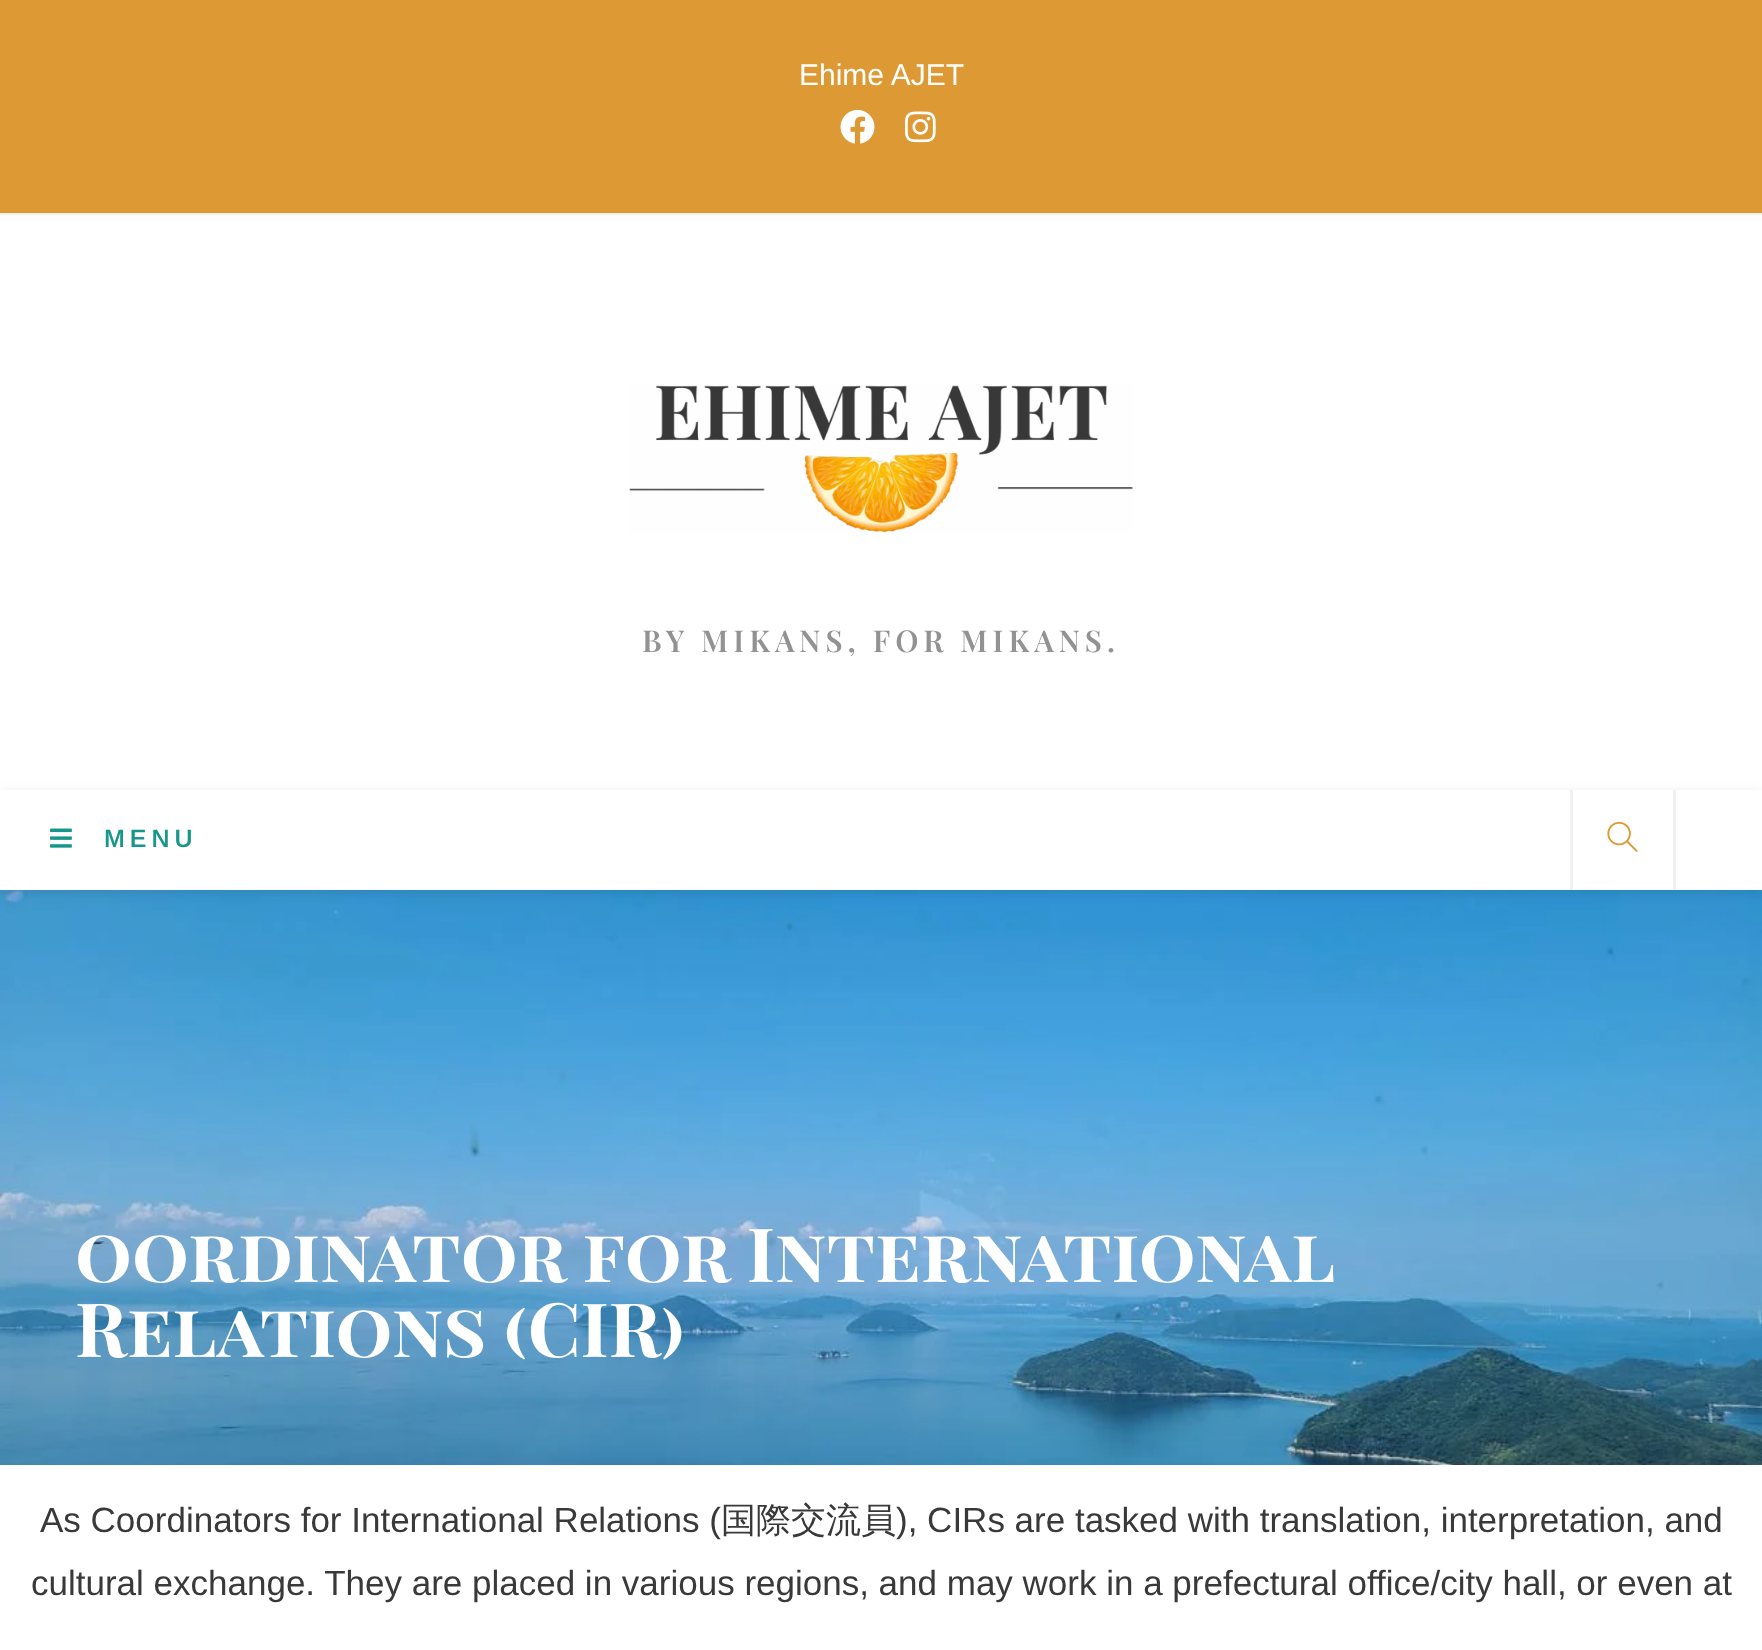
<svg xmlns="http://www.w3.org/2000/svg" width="1762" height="1650">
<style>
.a{font:30px Arimo;fill:#fff}
.b{font:600 30px Playfair Display;letter-spacing:5px;fill:#929292}
.c{font:600 25px Arimo;letter-spacing:5px;fill:#17968b}
.d{font:bold 75px Playfair Display SC;fill:#fff}
.e{font:35px Arimo;fill:#393939}
.f{font:500 35px WenQuanYi Zen Hei;fill:#393939}
</style>
<defs>
<clipPath id="clip1"><path d="M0 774h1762v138h-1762zm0 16h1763v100h-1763z" clip-rule="evenodd"/></clipPath>
</defs>
<rect width="100%" height="100%" fill="#fff"/>
<path fill="#d93" d="M0 0h1762v213H0z"/>
<path fill="#f1f1f1" d="M0 213h1762v2H0z"/>
<image href="1.png" x="840" y="109" width="35" height="35"/>
<image href="2.png" x="905" y="111" width="31" height="32"/>
<image href="3.png" x="629" y="385" width="504" height="148"/>
<image href="6.png" x="0" y="890" width="1762" height="575"/>
<g clip-path="url(#clip1)">
<path fill="#0000001a" filter="blur(6px)" d="M0 793h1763v100H0z"/>
</g>
<image href="4.png" x="50" y="828" width="22" height="20"/>
<path fill="#f1f1f1" d="M1673 790h3v100H1673z"/>
<path fill="#f1f1f1" d="M1570 790h3v100H1570z"/>
<image href="5.png" x="1607" y="821" width="31" height="31"/>
<text class="a" x="799" y="85">Ehime AJET</text>
<text class="b" x="642" y="652">BY MIKANS, FOR MIKANS.</text>
<text class="c" x="104" y="847">MENU</text>
<text class="d" x="75" y="1282" word-spacing="-1">oordinator for International</text>
<text class="d" x="75" y="1357">Relations (CIR)</text>
<text class="e" x="40" y="1532">As Coordinators for International Relations (</text>
<text class="f" x="721" y="1532">国際交流員</text>
<text class="e" x="896" y="1532">), CIRs are tasked with translation, interpretation, and</text>
<text class="e" x="31" y="1595">cultural exchange. They are placed in various regions, and may work in a prefectural office/city hall, or even at</text>
</svg>
